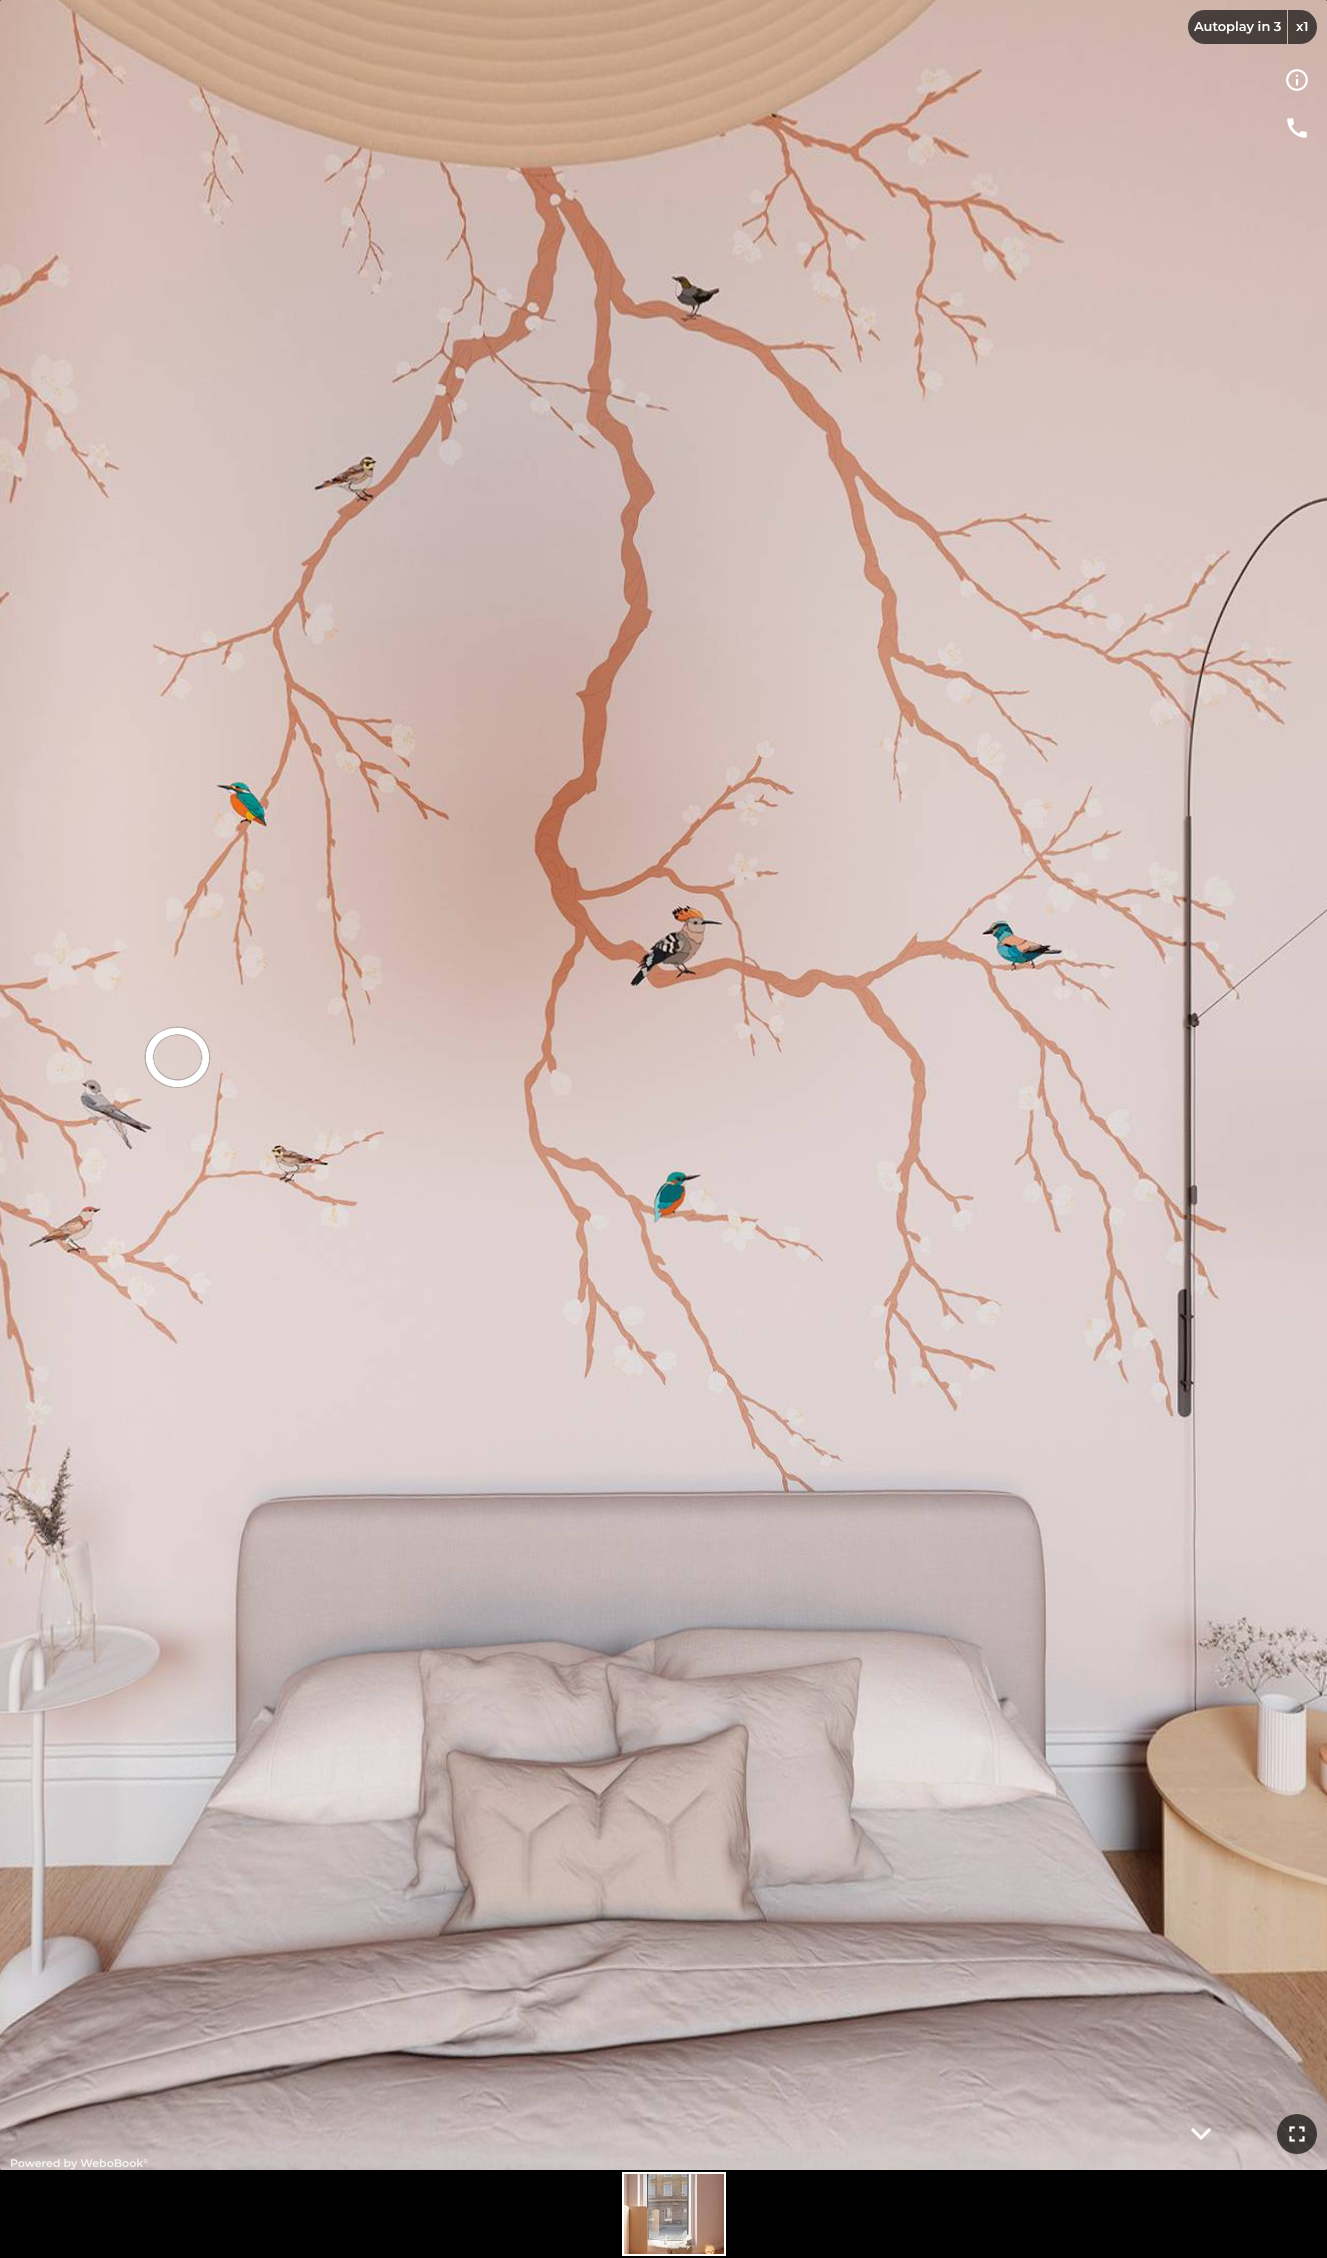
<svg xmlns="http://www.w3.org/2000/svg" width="1327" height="2258">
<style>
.a{font:600 13px Montserrat;fill:#fff}
.b{font:600 11px Montserrat;fill:#f4f2f2}
</style>
<rect width="100%" height="100%" fill="#000"/>
<image href="1.png" x="0" y="0" width="1327" height="2170"/>
<path fill="#000000a6" d="M1205 10h82v34h-82c-9.5 0-17-7.5-17-17c0-9.5 7.5-17 17-17z"/>
<path fill="#000000a6" d="M1288 10h12c9.5 0 17 7.5 17 17c0 9.5-7.5 17-17 17h-12z"/>
<image href="2.png" x="1286" y="69" width="22" height="22"/>
<image href="3.png" x="1287" y="118" width="20" height="20"/>
<image href="4.png" x="1191" y="2128" width="20" height="12"/>
<circle fill="#000000a6" cx="1297" cy="2134" r="20"/>
<image href="5.png" x="1289" y="2126" width="16" height="16"/>
<path fill="none" stroke="#fff" stroke-width="2" d="M623 2173h102v82H623z"/>
<image href="6.png" x="624" y="2174" width="100" height="80"/>
<text class="a" x="1194" y="31">Autoplay in 3</text>
<text class="a" x="1296" y="31">x1</text>
<text class="b" x="10" y="2167">Powered by WeboBook°</text>
</svg>
